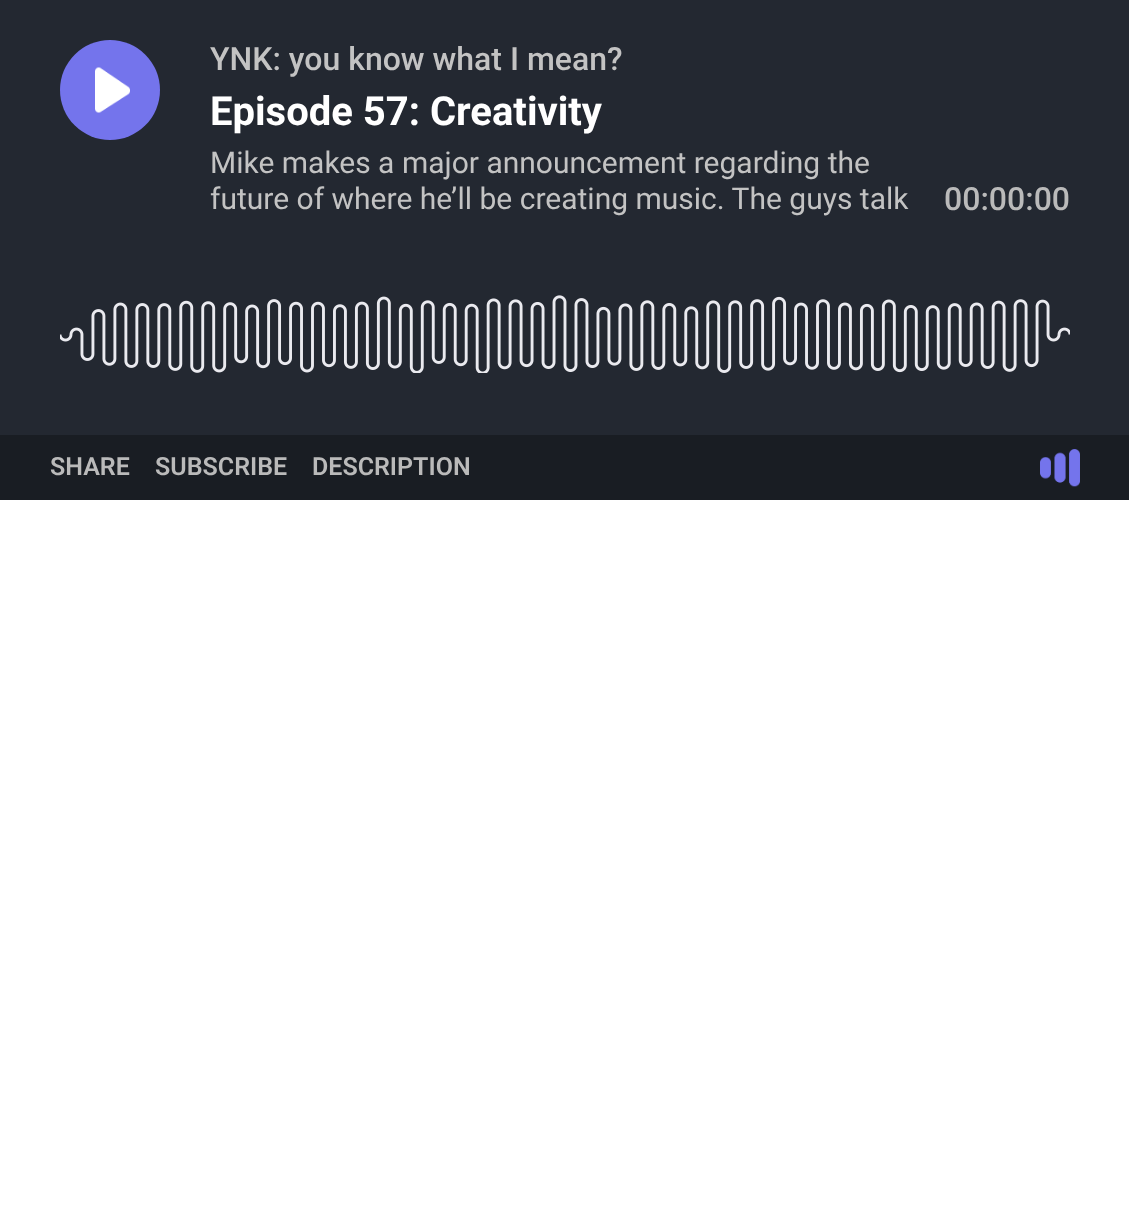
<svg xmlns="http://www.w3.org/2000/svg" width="1129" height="1218">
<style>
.a{font:500 32px Roboto;fill:#c3c3c3}
.b{font:bold 40px Roboto;fill:#fff}
.c{font:30px Roboto;fill:#c3c3c3}
.d{font:500 32px Roboto;fill:#bababa}
.e{font:600 25px Roboto;fill:#bababa}
</style>
<rect width="100%" height="100%" fill="#fff"/>
<path fill="#232831" d="M0 0h1129v435H0z"/>
<circle fill="#7474ec" cx="110" cy="90" r="50"/>
<image href="1.png" x="95" y="67" width="35" height="46"/>
<image href="2.png" x="60" y="295" width="1010" height="78"/>
<path fill="#191d23" d="M0 435h1129v65H0z"/>
<image href="3.png" x="1040" y="449" width="40" height="38"/>
<text class="a" x="210" y="70">YNK: you know what I mean?</text>
<text class="b" x="210" y="125">Episode 57: Creativity</text>
<text class="c" x="210" y="173">Mike makes a major announcement regarding the</text>
<text class="c" x="210" y="209">future of where he’ll be creating music. The guys talk</text>
<text class="d" x="944" y="210">00:00:00</text>
<text class="e" x="50" y="475">SHARE</text>
<text class="e" x="155" y="475">SUBSCRIBE</text>
<text class="e" x="312" y="475">DESCRIPTION</text>
</svg>
